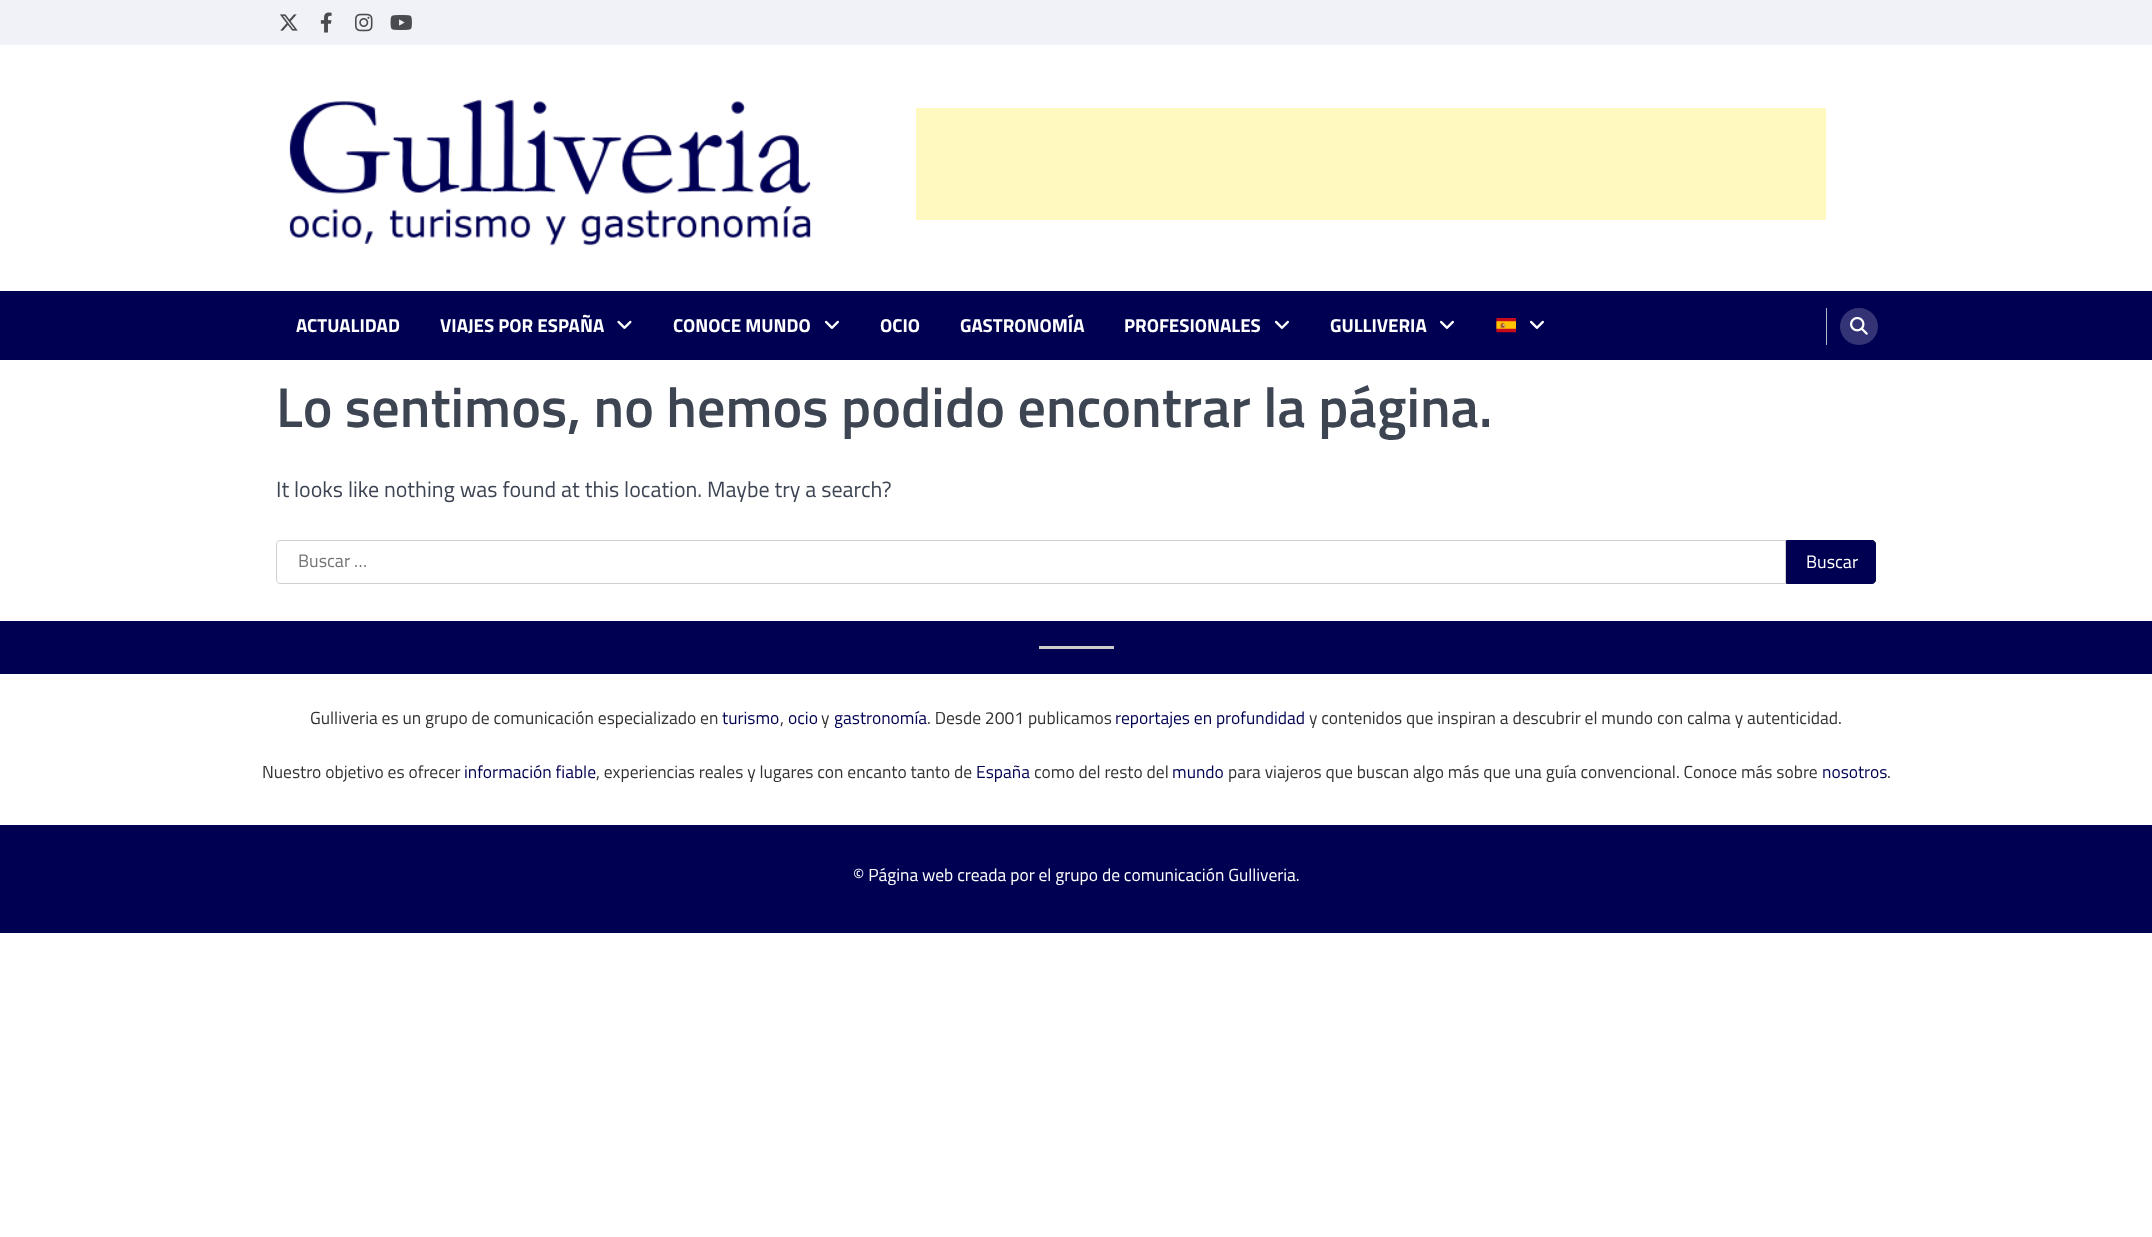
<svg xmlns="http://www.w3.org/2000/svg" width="2152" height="1237">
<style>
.a{font:bold 18.75px Titillium Web;fill:#fff}
.b{font:600 56.2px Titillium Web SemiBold;fill:#3d4452}
.c{font:22px Titillium Web;fill:#3d4452}
.d{font:18px Titillium Web;fill:#757575}
.e{font:18px Titillium Web;fill:#fff}
.f{font:17.5px Titillium Web;fill:#333}
.g{font:17.5px Titillium Web;fill:#000052}
.h{font:17.5px Titillium Web;fill:#fff}
</style>
<rect width="100%" height="100%" fill="#fff"/>
<path fill="#f0f2f7" d="M0 0h2152v45H0z"/>
<image href="1.png" x="280" y="14" width="18" height="17"/>
<image href="2.png" x="320" y="12" width="12" height="21"/>
<image href="3.png" x="355" y="13" width="18" height="19"/>
<image href="4.png" x="390" y="15" width="22" height="15"/>
<image href="5.png" x="289" y="99" width="523" height="147"/>
<path fill="#fff9c0" d="M916 108h910v112H916z"/>
<path fill="#000052" d="M0 291h2152v69H0z"/>
<image href="6.png" x="617" y="320" width="15" height="9"/>
<image href="7.png" x="825" y="320" width="14" height="9"/>
<image href="7.png" x="1275" y="320" width="14" height="9"/>
<image href="7.png" x="1440" y="320" width="14" height="9"/>
<image href="8.png" x="1496" y="318" width="20" height="15"/>
<image href="7.png" x="1530" y="320" width="14" height="9"/>
<path fill="#b3b3cb" d="M1826 308h1v37H1826z"/>
<rect fill="#333375" x="1840" y="308" width="38" height="37" rx="18.5"/>
<image href="9.png" x="1850" y="316" width="18" height="19"/>
<path fill="none" stroke="#d3ced2" d="M280 540.5h1505.5v43h-1505.5c-2 0-3.5-1.5-3.5-3.5v-36c0-2 1.5-3.5 3.5-3.5z"/>
<path fill="#000052" stroke="#000052" d="M1786.5 540.5h85.5c2 0 3.5 1.5 3.5 3.5v36c0 2-1.5 3.5-3.5 3.5h-85.5z"/>
<path fill="#000052" d="M0 621h2152v312H0z"/>
<path fill="#ccc" d="M1039 646h75v3H1039z"/>
<path fill="#fff" d="M0 674h2152v151H0z"/>
<text class="a" x="296" y="332">ACTUALIDAD</text>
<text class="a" x="440" y="332">VIAJES POR ESPAÑA</text>
<text class="a" x="673" y="332">CONOCE MUNDO</text>
<text class="a" x="880" y="332">OCIO</text>
<text class="a" x="960" y="332">GASTRONOMÍA</text>
<text class="a" x="1124" y="332">PROFESIONALES</text>
<text class="a" x="1330" y="332">GULLIVERIA</text>
<text class="b" x="276" y="427">Lo sentimos, no hemos podido encontrar la página.</text>
<text class="c" x="276" y="497">It looks like nothing was found at this location. Maybe try a search?</text>
<text class="d" x="298" y="567">Buscar …</text>
<text class="e" x="1806" y="568">Buscar</text>
<text class="f" x="310" y="724">Gulliveria es un grupo de comunicación especializado en</text>
<text class="g" x="722" y="724">turismo</text>
<text class="f" x="780" y="724">,</text>
<text class="g" x="788" y="724">ocio</text>
<text class="f" x="821" y="724">y</text>
<text class="g" x="834" y="724">gastronomía</text>
<text class="f" x="927" y="724">. Desde 2001 publicamos</text>
<text class="g" x="1115" y="724">reportajes en profundidad</text>
<text class="f" x="1309" y="724">y contenidos que inspiran a descubrir el mundo con calma y autenticidad.</text>
<text class="f" x="262" y="778">Nuestro objetivo es ofrecer</text>
<text class="g" x="464" y="778">información fiable</text>
<text class="f" x="596" y="778">, experiencias reales y lugares con encanto tanto de</text>
<text class="g" x="976" y="778">España</text>
<text class="f" x="1034" y="778">como del resto del</text>
<text class="g" x="1172" y="778">mundo</text>
<text class="f" x="1228" y="778">para viajeros que buscan algo más que una guía convencional. Conoce más sobre</text>
<text class="g" x="1822" y="778">nosotros</text>
<text class="f" x="1887" y="778">.</text>
<text class="h" x="853" y="881">© Página web creada por el grupo de comunicación Gulliveria.</text>
</svg>
